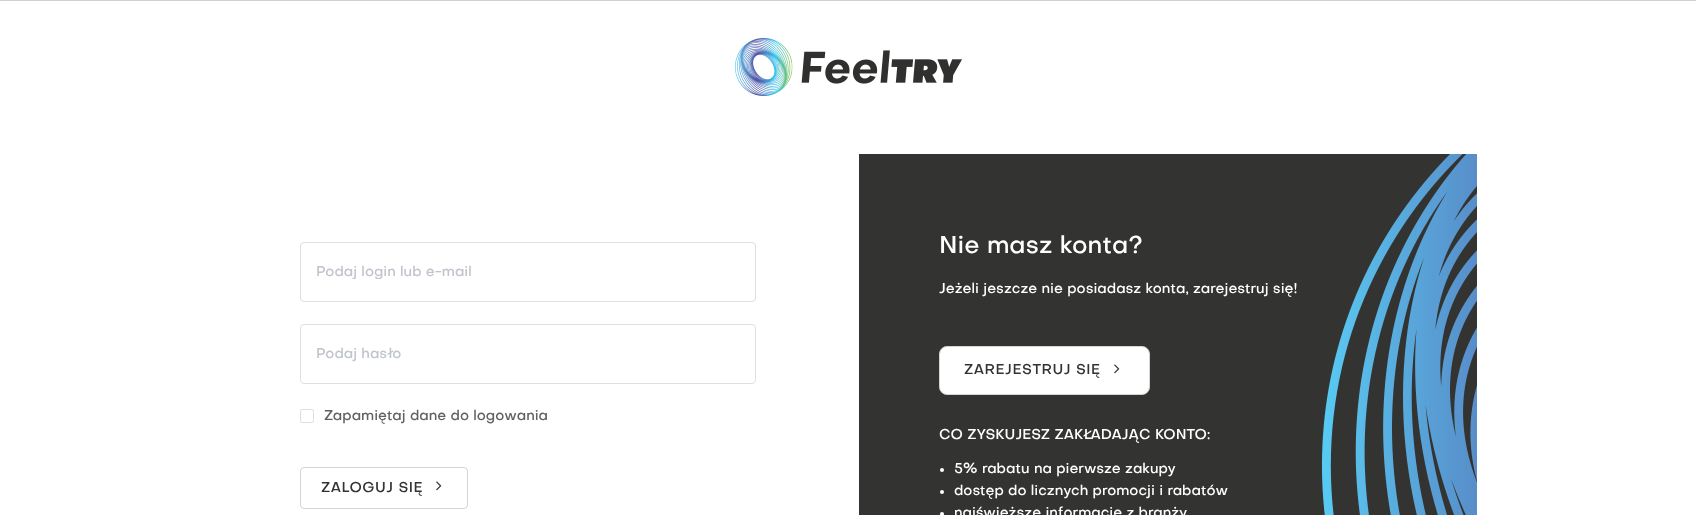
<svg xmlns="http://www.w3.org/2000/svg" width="1696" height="515">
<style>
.a{font:500 14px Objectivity;fill:#c0c4cc}
.b{font:500 14px Objectivity;fill:#606266}
.c{font:500 14px Objectivity;letter-spacing:0.5px;fill:#333332}
.d{font:500 24px Objectivity;fill:#fff}
.e{font:500 14px Objectivity;fill:#fff}
</style>
<defs>
<clipPath id="clip1"><path d="M316 265h424v14H316z"/></clipPath>
</defs>
<rect width="100%" height="100%" fill="#fff"/>
<path fill="#d1d1d1" d="M0 0h1696v1H0z"/>
<image href="1.png" x="735" y="38" width="227" height="58"/>
<rect fill="none" stroke="#dcdfe6" x="300.5" y="242.5" width="455" height="59" rx="3.5"/>
<rect fill="none" stroke="#dcdfe6" x="300.5" y="324.5" width="455" height="59" rx="3.5"/>
<rect fill="none" stroke="#dcdfe6" x="300.5" y="409.5" width="13" height="13" rx="1.5"/>
<rect fill="none" stroke="#d4d4d4" x="300.5" y="467.5" width="167" height="41" rx="3.5"/>
<image href="2.png" x="436" y="481" width="6" height="10"/>
<path fill="#333332" d="M859 154h463v361H859z"/>
<image href="3.png" x="1322" y="154" width="155" height="361"/>
<rect fill="#fff" stroke="#d4d4d4" x="939.5" y="346.5" width="210" height="48" rx="7.5"/>
<image href="2.png" x="1114" y="364" width="6" height="10"/>
<circle fill="#fff" cx="942" cy="470" r="2"/>
<circle fill="#fff" cx="942" cy="492" r="2"/>
<circle fill="#fff" cx="942" cy="514" r="2"/>
<g clip-path="url(#clip1)">
<text class="a" x="316" y="276">Podaj login lub e-mail</text>
</g>
<text class="a" x="316" y="358">Podaj hasło</text>
<text class="b" x="324" y="420">Zapamiętaj dane do logowania</text>
<text class="c" x="321" y="492">ZALOGUJ SIĘ</text>
<text class="d" x="939" y="253">Nie masz konta?</text>
<text class="e" x="939" y="293">Jeżeli jeszcze nie posiadasz konta, zarejestruj się!</text>
<text class="c" x="964" y="374">ZAREJESTRUJ SIĘ</text>
<text class="e" x="939" y="439">CO ZYSKUJESZ ZAKŁADAJĄC KONTO:</text>
<text class="e" x="954" y="473">5% rabatu na pierwsze zakupy</text>
<text class="e" x="954" y="495">dostęp do licznych promocji i rabatów</text>
<text class="e" x="954" y="517">najświeższe informacje z branży</text>
</svg>
